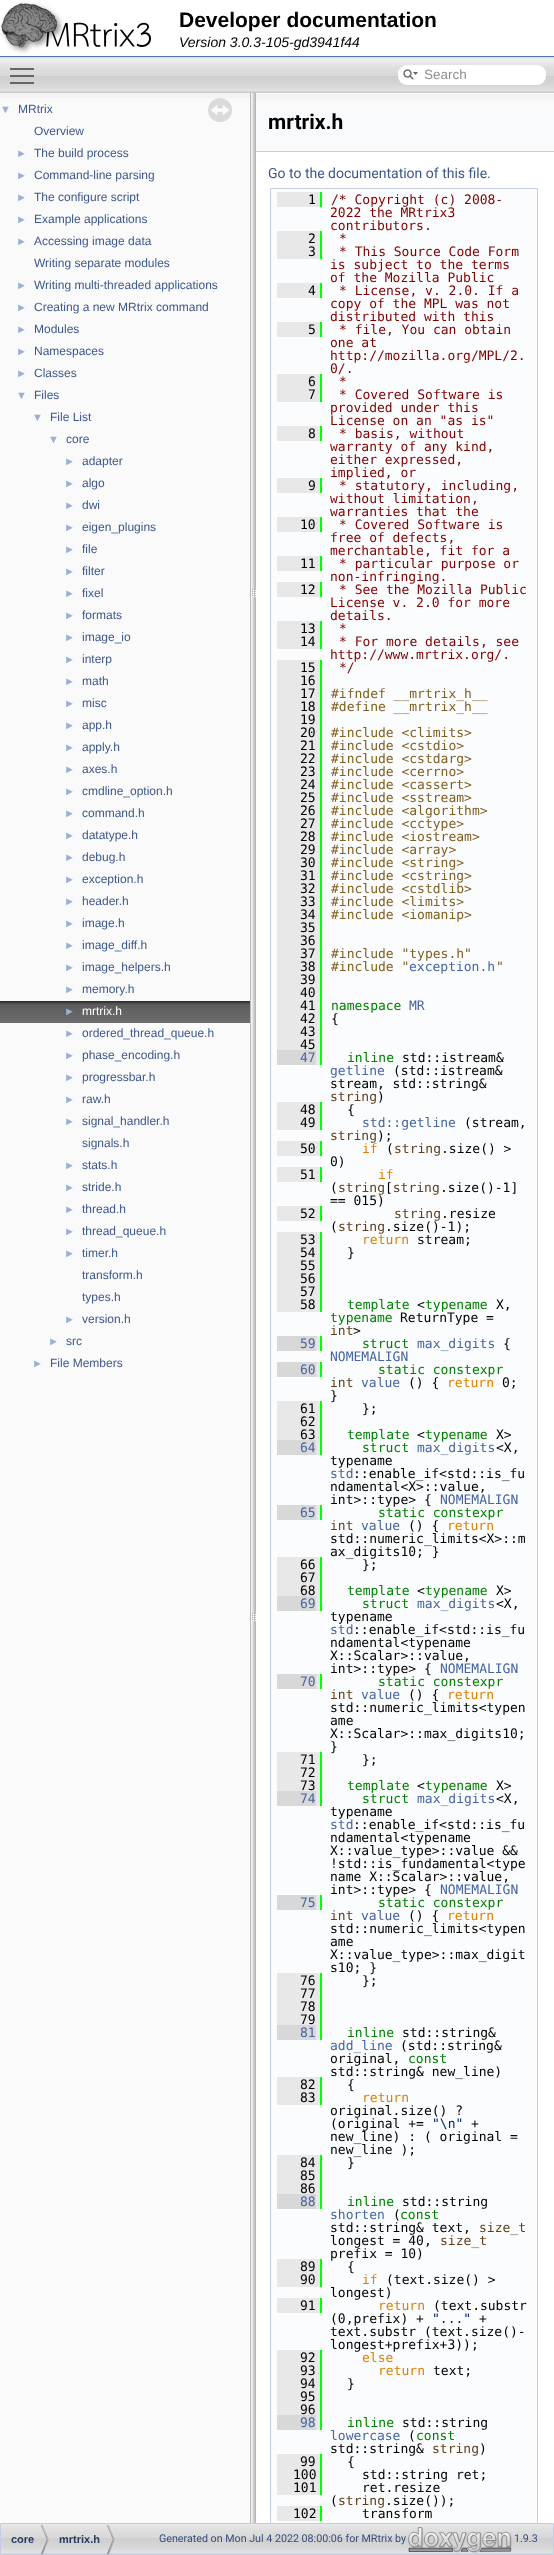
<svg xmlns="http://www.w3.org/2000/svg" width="554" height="2555">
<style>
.a{font:bold 21px Liberation Sans;fill:#000}
.b{font:italic 14px Liberation Sans;fill:#000}
.c{font:13.5px Liberation Sans;fill:#909090}
.d{font:11px Liberation Sans;fill:#9cafd4}
.e{font:12px Liberation Sans;fill:#3d578c}
.f{font:12px Liberation Sans;fill:#fff}
.g{font:bold 21px Roboto;fill:#000}
.h{font:14px Roboto;fill:#3d578c}
.i{font:13px DejaVu Sans Mono;fill:#000}
.j{font:13px DejaVu Sans Mono;fill:#800000}
.k{font:13px DejaVu Sans Mono;fill:#806020}
.l{font:13px DejaVu Sans Mono;fill:#4665a2}
.m{font:13px DejaVu Sans Mono;fill:#008000}
.n{font:13px DejaVu Sans Mono;fill:#604020}
.o{font:13px DejaVu Sans Mono;fill:#e08000}
.p{font:13px DejaVu Sans Mono;fill:#002080}
.q{font:bold 11px Liberation Sans;fill:#283a5d}
.r{font:10.7px Roboto;fill:#364d7c}
</style>
<rect width="100%" height="100%" fill="#fff"/>
<path fill="#5373b4" d="M0 56h554v1H0z"/>
<image href="1.png" x="0" y="2" width="151" height="52"/>
<image href="2.png" x="0" y="57" width="554" height="36"/>
<path fill="#666" d="M10 75h24v2H10z"/>
<path fill="#666" d="M10 68h24v2H10z"/>
<path fill="#666" d="M10 82h24v2H10z"/>
<rect fill="#fff" x="398" y="65" width="148" height="20" rx="9"/>
<image href="3.png" x="403" y="69" width="15" height="11"/>
<path fill="#fafafa" d="M0 98h250v2425H0z"/>
<path fill="#f3f3f3" d="M0 93h250v5H0z"/>
<image href="4.png" x="0" y="1001" width="250" height="22"/>
<image href="5.png" x="208" y="98" width="24" height="24"/>
<image href="6.png" x="250" y="93" width="6" height="2430"/>
<path fill="#f9fafc" d="M256 101h298v50H256z"/>
<image href="7.png" x="256" y="93" width="298" height="8"/>
<path fill="#c4cfe5" d="M256 151h298v1H256z"/>
<path fill="#fbfcfd" d="M271 189h266v2334H271z"/>
<path fill="none" stroke="#c4cfe5" d="M270.5 188.5h267v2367H270.5z"/>
<path fill="#e8e8e8" d="M277 192h43v15H277z"/>
<path fill="#0f0" d="M320 192h2v15H320z"/>
<path fill="#e8e8e8" d="M277 231h43v28H277z"/>
<path fill="#0f0" d="M320 231h2v28H320z"/>
<path fill="#e8e8e8" d="M277 283h43v15H277z"/>
<path fill="#0f0" d="M320 283h2v15H320z"/>
<path fill="#e8e8e8" d="M277 322h43v15H277z"/>
<path fill="#0f0" d="M320 322h2v15H320z"/>
<path fill="#e8e8e8" d="M277 374h43v28H277z"/>
<path fill="#0f0" d="M320 374h2v28H320z"/>
<path fill="#e8e8e8" d="M277 426h43v15H277z"/>
<path fill="#0f0" d="M320 426h2v15H320z"/>
<path fill="#e8e8e8" d="M277 478h43v15H277z"/>
<path fill="#0f0" d="M320 478h2v15H320z"/>
<path fill="#e8e8e8" d="M277 517h43v15H277z"/>
<path fill="#0f0" d="M320 517h2v15H320z"/>
<path fill="#e8e8e8" d="M277 556h43v15H277z"/>
<path fill="#0f0" d="M320 556h2v15H320z"/>
<path fill="#e8e8e8" d="M277 582h43v15H277z"/>
<path fill="#0f0" d="M320 582h2v15H320z"/>
<path fill="#e8e8e8" d="M277 621h43v28H277z"/>
<path fill="#0f0" d="M320 621h2v28H320z"/>
<path fill="#e8e8e8" d="M277 660h43v390H277z"/>
<path fill="#0f0" d="M320 660h2v405H320z"/>
<path fill="#e8e8e8" d="M316 1050h4v15H316z"/>
<path fill="#d8d8d8" d="M277 1050h39v15H277z"/>
<path fill="#e8e8e8" d="M277 1102h43v28H277z"/>
<path fill="#0f0" d="M320 1102h2v28H320z"/>
<path fill="#e8e8e8" d="M277 1141h43v15H277z"/>
<path fill="#0f0" d="M320 1141h2v15H320z"/>
<path fill="#e8e8e8" d="M277 1167h43v15H277z"/>
<path fill="#0f0" d="M320 1167h2v15H320z"/>
<path fill="#e8e8e8" d="M277 1206h43v15H277z"/>
<path fill="#0f0" d="M320 1206h2v15H320z"/>
<path fill="#e8e8e8" d="M277 1232h43v80H277z"/>
<path fill="#0f0" d="M320 1232h2v80H320z"/>
<path fill="#e8e8e8" d="M316 1336h4v15H316z"/>
<path fill="#0f0" d="M320 1336h2v15H320z"/>
<path fill="#d8d8d8" d="M277 1336h39v15H277z"/>
<path fill="#e8e8e8" d="M316 1362h4v15H316z"/>
<path fill="#0f0" d="M320 1362h2v15H320z"/>
<path fill="#d8d8d8" d="M277 1362h39v15H277z"/>
<path fill="#e8e8e8" d="M277 1401h43v39H277z"/>
<path fill="#0f0" d="M320 1401h2v54H320z"/>
<path fill="#e8e8e8" d="M316 1440h4v15H316z"/>
<path fill="#d8d8d8" d="M277 1440h39v15H277z"/>
<path fill="#e8e8e8" d="M316 1505h4v15H316z"/>
<path fill="#0f0" d="M320 1505h2v15H320z"/>
<path fill="#d8d8d8" d="M277 1505h39v15H277z"/>
<path fill="#e8e8e8" d="M277 1557h43v39H277z"/>
<path fill="#0f0" d="M320 1557h2v54H320z"/>
<path fill="#e8e8e8" d="M316 1596h4v15H316z"/>
<path fill="#d8d8d8" d="M277 1596h39v15H277z"/>
<path fill="#e8e8e8" d="M316 1674h4v15H316z"/>
<path fill="#0f0" d="M320 1674h2v15H320z"/>
<path fill="#d8d8d8" d="M277 1674h39v15H277z"/>
<path fill="#e8e8e8" d="M277 1752h43v39H277z"/>
<path fill="#0f0" d="M320 1752h2v54H320z"/>
<path fill="#e8e8e8" d="M316 1791h4v15H316z"/>
<path fill="#d8d8d8" d="M277 1791h39v15H277z"/>
<path fill="#e8e8e8" d="M316 1895h4v15H316z"/>
<path fill="#0f0" d="M320 1895h2v15H320z"/>
<path fill="#d8d8d8" d="M277 1895h39v15H277z"/>
<path fill="#e8e8e8" d="M277 1973h43v52H277z"/>
<path fill="#0f0" d="M320 1973h2v67H320z"/>
<path fill="#e8e8e8" d="M316 2025h4v15H316z"/>
<path fill="#d8d8d8" d="M277 2025h39v15H277z"/>
<path fill="#e8e8e8" d="M277 2077h43v28H277z"/>
<path fill="#0f0" d="M320 2077h2v28H320z"/>
<path fill="#e8e8e8" d="M277 2155h43v39H277z"/>
<path fill="#0f0" d="M320 2155h2v54H320z"/>
<path fill="#e8e8e8" d="M316 2194h4v15H316z"/>
<path fill="#d8d8d8" d="M277 2194h39v15H277z"/>
<path fill="#e8e8e8" d="M277 2259h43v28H277z"/>
<path fill="#0f0" d="M320 2259h2v28H320z"/>
<path fill="#e8e8e8" d="M277 2298h43v15H277z"/>
<path fill="#0f0" d="M320 2298h2v15H320z"/>
<path fill="#e8e8e8" d="M277 2350h43v65H277z"/>
<path fill="#0f0" d="M320 2350h2v80H320z"/>
<path fill="#e8e8e8" d="M316 2415h4v15H316z"/>
<path fill="#d8d8d8" d="M277 2415h39v15H277z"/>
<path fill="#e8e8e8" d="M277 2454h43v41H277z"/>
<path fill="#0f0" d="M320 2454h2v41H320z"/>
<path fill="#e8e8e8" d="M277 2506h43v15H277z"/>
<path fill="#0f0" d="M320 2506h2v15H320z"/>
<image href="8.png" x="1" y="2524" width="552" height="30"/>
<path fill="none" stroke="#c2cde4" d="M0.5 2523.5h553v31H0.5z"/>
<image href="9.png" x="41" y="2525" width="8" height="29"/>
<image href="9.png" x="107" y="2525" width="8" height="29"/>
<image href="10.png" x="408" y="2527" width="104" height="26"/>
<text class="a" x="179" y="27">Developer documentation</text>
<text class="b" x="179" y="47">Version 3.0.3-105-gd3941f44</text>
<text class="c" x="424" y="79">Search</text>
<text class="d" x="0" y="113">▼</text>
<text class="e" x="18" y="113">MRtrix</text>
<text class="e" x="34" y="135">Overview</text>
<text class="d" x="16" y="157">►</text>
<text class="e" x="34" y="157">The build process</text>
<text class="d" x="16" y="179">►</text>
<text class="e" x="34" y="179">Command-line parsing</text>
<text class="d" x="16" y="201">►</text>
<text class="e" x="34" y="201">The configure script</text>
<text class="d" x="16" y="223">►</text>
<text class="e" x="34" y="223">Example applications</text>
<text class="d" x="16" y="245">►</text>
<text class="e" x="34" y="245">Accessing image data</text>
<text class="e" x="34" y="267">Writing separate modules</text>
<text class="d" x="16" y="289">►</text>
<text class="e" x="34" y="289">Writing multi-threaded applications</text>
<text class="d" x="16" y="311">►</text>
<text class="e" x="34" y="311">Creating a new MRtrix command</text>
<text class="d" x="16" y="333">►</text>
<text class="e" x="34" y="333">Modules</text>
<text class="d" x="16" y="355">►</text>
<text class="e" x="34" y="355">Namespaces</text>
<text class="d" x="16" y="377">►</text>
<text class="e" x="34" y="377">Classes</text>
<text class="d" x="16" y="399">▼</text>
<text class="e" x="34" y="399">Files</text>
<text class="d" x="32" y="421">▼</text>
<text class="e" x="50" y="421">File List</text>
<text class="d" x="48" y="443">▼</text>
<text class="e" x="66" y="443">core</text>
<text class="d" x="64" y="465">►</text>
<text class="e" x="82" y="465">adapter</text>
<text class="d" x="64" y="487">►</text>
<text class="e" x="82" y="487">algo</text>
<text class="d" x="64" y="509">►</text>
<text class="e" x="82" y="509">dwi</text>
<text class="d" x="64" y="531">►</text>
<text class="e" x="82" y="531">eigen_plugins</text>
<text class="d" x="64" y="553">►</text>
<text class="e" x="82" y="553">file</text>
<text class="d" x="64" y="575">►</text>
<text class="e" x="82" y="575">filter</text>
<text class="d" x="64" y="597">►</text>
<text class="e" x="82" y="597">fixel</text>
<text class="d" x="64" y="619">►</text>
<text class="e" x="82" y="619">formats</text>
<text class="d" x="64" y="641">►</text>
<text class="e" x="82" y="641">image_io</text>
<text class="d" x="64" y="663">►</text>
<text class="e" x="82" y="663">interp</text>
<text class="d" x="64" y="685">►</text>
<text class="e" x="82" y="685">math</text>
<text class="d" x="64" y="707">►</text>
<text class="e" x="82" y="707">misc</text>
<text class="d" x="64" y="729">►</text>
<text class="e" x="82" y="729">app.h</text>
<text class="d" x="64" y="751">►</text>
<text class="e" x="82" y="751">apply.h</text>
<text class="d" x="64" y="773">►</text>
<text class="e" x="82" y="773">axes.h</text>
<text class="d" x="64" y="795">►</text>
<text class="e" x="82" y="795">cmdline_option.h</text>
<text class="d" x="64" y="817">►</text>
<text class="e" x="82" y="817">command.h</text>
<text class="d" x="64" y="839">►</text>
<text class="e" x="82" y="839">datatype.h</text>
<text class="d" x="64" y="861">►</text>
<text class="e" x="82" y="861">debug.h</text>
<text class="d" x="64" y="883">►</text>
<text class="e" x="82" y="883">exception.h</text>
<text class="d" x="64" y="905">►</text>
<text class="e" x="82" y="905">header.h</text>
<text class="d" x="64" y="927">►</text>
<text class="e" x="82" y="927">image.h</text>
<text class="d" x="64" y="949">►</text>
<text class="e" x="82" y="949">image_diff.h</text>
<text class="d" x="64" y="971">►</text>
<text class="e" x="82" y="971">image_helpers.h</text>
<text class="d" x="64" y="993">►</text>
<text class="e" x="82" y="993">memory.h</text>
<text class="d" x="64" y="1015">►</text>
<text class="f" x="82" y="1015">mrtrix.h</text>
<text class="d" x="64" y="1037">►</text>
<text class="e" x="82" y="1037">ordered_thread_queue.h</text>
<text class="d" x="64" y="1059">►</text>
<text class="e" x="82" y="1059">phase_encoding.h</text>
<text class="d" x="64" y="1081">►</text>
<text class="e" x="82" y="1081">progressbar.h</text>
<text class="d" x="64" y="1103">►</text>
<text class="e" x="82" y="1103">raw.h</text>
<text class="d" x="64" y="1125">►</text>
<text class="e" x="82" y="1125">signal_handler.h</text>
<text class="e" x="82" y="1147">signals.h</text>
<text class="d" x="64" y="1169">►</text>
<text class="e" x="82" y="1169">stats.h</text>
<text class="d" x="64" y="1191">►</text>
<text class="e" x="82" y="1191">stride.h</text>
<text class="d" x="64" y="1213">►</text>
<text class="e" x="82" y="1213">thread.h</text>
<text class="d" x="64" y="1235">►</text>
<text class="e" x="82" y="1235">thread_queue.h</text>
<text class="d" x="64" y="1257">►</text>
<text class="e" x="82" y="1257">timer.h</text>
<text class="e" x="82" y="1279">transform.h</text>
<text class="e" x="82" y="1301">types.h</text>
<text class="d" x="64" y="1323">►</text>
<text class="e" x="82" y="1323">version.h</text>
<text class="d" x="48" y="1345">►</text>
<text class="e" x="66" y="1345">src</text>
<text class="d" x="32" y="1367">►</text>
<text class="e" x="50" y="1367">File Members</text>
<text class="g" x="268" y="129">mrtrix.h</text>
<text class="h" x="268" y="178">Go to the documentation of this file.</text>
<text class="i" x="308" y="204">1</text>
<text class="j" x="331" y="204">/* Copyright (c) 2008-</text>
<text class="j" x="330" y="217">2022 the MRtrix3</text>
<text class="j" x="330" y="230">contributors.</text>
<text class="i" x="308" y="243">2</text>
<text class="j" x="339" y="243">*</text>
<text class="i" x="308" y="256">3</text>
<text class="j" x="339" y="256">* This Source Code Form</text>
<text class="j" x="330" y="269">is subject to the terms</text>
<text class="j" x="330" y="282">of the Mozilla Public</text>
<text class="i" x="308" y="295">4</text>
<text class="j" x="339" y="295">* License, v. 2.0. If a</text>
<text class="j" x="330" y="308">copy of the MPL was not</text>
<text class="j" x="330" y="321">distributed with this</text>
<text class="i" x="308" y="334">5</text>
<text class="j" x="339" y="334">* file, You can obtain</text>
<text class="j" x="330" y="347">one at</text>
<text class="j" x="330" y="360">http://mozilla.org/MPL/2.</text>
<text class="j" x="330" y="373">0/.</text>
<text class="i" x="308" y="386">6</text>
<text class="j" x="339" y="386">*</text>
<text class="i" x="308" y="399">7</text>
<text class="j" x="339" y="399">* Covered Software is</text>
<text class="j" x="330" y="412">provided under this</text>
<text class="j" x="330" y="425">License on an "as is"</text>
<text class="i" x="308" y="438">8</text>
<text class="j" x="339" y="438">* basis, without</text>
<text class="j" x="330" y="451">warranty of any kind,</text>
<text class="j" x="330" y="464">either expressed,</text>
<text class="j" x="330" y="477">implied, or</text>
<text class="i" x="308" y="490">9</text>
<text class="j" x="339" y="490">* statutory, including,</text>
<text class="j" x="330" y="503">without limitation,</text>
<text class="j" x="330" y="516">warranties that the</text>
<text class="i" x="300" y="529">10</text>
<text class="j" x="339" y="529">* Covered Software is</text>
<text class="j" x="330" y="542">free of defects,</text>
<text class="j" x="330" y="555">merchantable, fit for a</text>
<text class="i" x="300" y="568">11</text>
<text class="j" x="339" y="568">* particular purpose or</text>
<text class="j" x="330" y="581">non-infringing.</text>
<text class="i" x="300" y="594">12</text>
<text class="j" x="339" y="594">* See the Mozilla Public</text>
<text class="j" x="330" y="607">License v. 2.0 for more</text>
<text class="j" x="330" y="620">details.</text>
<text class="i" x="300" y="633">13</text>
<text class="j" x="339" y="633">*</text>
<text class="i" x="300" y="646">14</text>
<text class="j" x="339" y="646">* For more details, see</text>
<text class="j" x="330" y="659">http://www.mrtrix.org/.</text>
<text class="i" x="300" y="672">15</text>
<text class="j" x="339" y="672">*/</text>
<text class="i" x="300" y="685">16</text>
<text class="i" x="300" y="698">17</text>
<text class="k" x="331" y="698">#ifndef __mrtrix_h__</text>
<text class="i" x="300" y="711">18</text>
<text class="k" x="331" y="711">#define __mrtrix_h__</text>
<text class="i" x="300" y="724">19</text>
<text class="i" x="300" y="737">20</text>
<text class="k" x="331" y="737">#include &lt;climits&gt;</text>
<text class="i" x="300" y="750">21</text>
<text class="k" x="331" y="750">#include &lt;cstdio&gt;</text>
<text class="i" x="300" y="763">22</text>
<text class="k" x="331" y="763">#include &lt;cstdarg&gt;</text>
<text class="i" x="300" y="776">23</text>
<text class="k" x="331" y="776">#include &lt;cerrno&gt;</text>
<text class="i" x="300" y="789">24</text>
<text class="k" x="331" y="789">#include &lt;cassert&gt;</text>
<text class="i" x="300" y="802">25</text>
<text class="k" x="331" y="802">#include &lt;sstream&gt;</text>
<text class="i" x="300" y="815">26</text>
<text class="k" x="331" y="815">#include &lt;algorithm&gt;</text>
<text class="i" x="300" y="828">27</text>
<text class="k" x="331" y="828">#include &lt;cctype&gt;</text>
<text class="i" x="300" y="841">28</text>
<text class="k" x="331" y="841">#include &lt;iostream&gt;</text>
<text class="i" x="300" y="854">29</text>
<text class="k" x="331" y="854">#include &lt;array&gt;</text>
<text class="i" x="300" y="867">30</text>
<text class="k" x="331" y="867">#include &lt;string&gt;</text>
<text class="i" x="300" y="880">31</text>
<text class="k" x="331" y="880">#include &lt;cstring&gt;</text>
<text class="i" x="300" y="893">32</text>
<text class="k" x="331" y="893">#include &lt;cstdlib&gt;</text>
<text class="i" x="300" y="906">33</text>
<text class="k" x="331" y="906">#include &lt;limits&gt;</text>
<text class="i" x="300" y="919">34</text>
<text class="k" x="331" y="919">#include &lt;iomanip&gt;</text>
<text class="i" x="300" y="932">35</text>
<text class="i" x="300" y="945">36</text>
<text class="i" x="300" y="958">37</text>
<text class="k" x="331" y="958">#include "types.h"</text>
<text class="i" x="300" y="971">38</text>
<text class="k" x="331" y="971">#include "</text>
<text class="l" x="409" y="971">exception.h</text>
<text class="k" x="496" y="971">"</text>
<text class="i" x="300" y="984">39</text>
<text class="i" x="300" y="997">40</text>
<text class="i" x="300" y="1010">41</text>
<text class="m" x="331" y="1010">namespace</text>
<text class="l" x="409" y="1010">MR</text>
<text class="i" x="300" y="1023">42</text>
<text class="i" x="331" y="1023">{</text>
<text class="i" x="300" y="1036">43</text>
<text class="i" x="300" y="1049">45</text>
<text class="l" x="300" y="1062">47</text>
<text class="m" x="347" y="1062">inline</text>
<text class="i" x="402" y="1062">std::istream&amp;</text>
<text class="l" x="330" y="1075">getline</text>
<text class="i" x="393" y="1075">(std::istream&amp;</text>
<text class="i" x="330" y="1088">stream, std::string&amp;</text>
<text class="n" x="330" y="1101">string</text>
<text class="i" x="377" y="1101">)</text>
<text class="i" x="300" y="1114">48</text>
<text class="i" x="347" y="1114">{</text>
<text class="i" x="300" y="1127">49</text>
<text class="l" x="362" y="1127">std::getline</text>
<text class="i" x="464" y="1127">(stream,</text>
<text class="n" x="330" y="1140">string</text>
<text class="i" x="377" y="1140">);</text>
<text class="i" x="300" y="1153">50</text>
<text class="o" x="362" y="1153">if</text>
<text class="i" x="386" y="1153">(</text>
<text class="n" x="394" y="1153">string</text>
<text class="i" x="441" y="1153">.size() &gt;</text>
<text class="i" x="330" y="1166">0)</text>
<text class="i" x="300" y="1179">51</text>
<text class="o" x="378" y="1179">if</text>
<text class="i" x="330" y="1192">(</text>
<text class="n" x="338" y="1192">string string</text>
<text class="i" x="385" y="1192">[</text>
<text class="i" x="440" y="1192">.size()-1]</text>
<text class="i" x="330" y="1205">== 015)</text>
<text class="i" x="300" y="1218">52</text>
<text class="n" x="394" y="1218">string</text>
<text class="i" x="441" y="1218">.resize</text>
<text class="i" x="330" y="1231">(</text>
<text class="n" x="338" y="1231">string</text>
<text class="i" x="385" y="1231">.size()-1);</text>
<text class="i" x="300" y="1244">53</text>
<text class="o" x="362" y="1244">return</text>
<text class="i" x="417" y="1244">stream;</text>
<text class="i" x="300" y="1257">54</text>
<text class="i" x="347" y="1257">}</text>
<text class="i" x="300" y="1270">55</text>
<text class="i" x="300" y="1283">56</text>
<text class="i" x="300" y="1296">57</text>
<text class="i" x="300" y="1309">58</text>
<text class="m" x="347" y="1309">template</text>
<text class="i" x="417" y="1309">&lt;</text>
<text class="m" x="425" y="1309">typename</text>
<text class="i" x="496" y="1309">X,</text>
<text class="m" x="330" y="1322">typename</text>
<text class="i" x="400" y="1322">ReturnType =</text>
<text class="n" x="330" y="1335">int</text>
<text class="i" x="353" y="1335">&gt;</text>
<text class="l" x="300" y="1348">59</text>
<text class="m" x="362" y="1348">struct</text>
<text class="l" x="417" y="1348">max_digits</text>
<text class="i" x="503" y="1348">{</text>
<text class="l" x="330" y="1361">NOMEMALIGN</text>
<text class="l" x="300" y="1374">60</text>
<text class="m" x="378" y="1374">static constexpr</text>
<text class="n" x="330" y="1387">int</text>
<text class="l" x="361" y="1387">value</text>
<text class="i" x="408" y="1387">() {</text>
<text class="o" x="447" y="1387">return</text>
<text class="i" x="502" y="1387">0;</text>
<text class="i" x="330" y="1400">}</text>
<text class="i" x="300" y="1413">61</text>
<text class="i" x="362" y="1413">};</text>
<text class="i" x="300" y="1426">62</text>
<text class="i" x="300" y="1439">63</text>
<text class="m" x="347" y="1439">template</text>
<text class="i" x="417" y="1439">&lt;</text>
<text class="m" x="425" y="1439">typename</text>
<text class="i" x="496" y="1439">X&gt;</text>
<text class="l" x="300" y="1452">64</text>
<text class="m" x="362" y="1452">struct</text>
<text class="l" x="417" y="1452">max_digits</text>
<text class="i" x="496" y="1452">&lt;X,</text>
<text class="i" x="330" y="1465">typename</text>
<text class="l" x="330" y="1478">std</text>
<text class="i" x="353" y="1478">::enable_if&lt;std::is_fu</text>
<text class="i" x="330" y="1491">ndamental&lt;X&gt;::value,</text>
<text class="i" x="330" y="1504">int&gt;::type&gt; {</text>
<text class="l" x="440" y="1504">NOMEMALIGN</text>
<text class="l" x="300" y="1517">65</text>
<text class="m" x="378" y="1517">static constexpr</text>
<text class="n" x="330" y="1530">int</text>
<text class="l" x="361" y="1530">value</text>
<text class="i" x="408" y="1530">() {</text>
<text class="o" x="447" y="1530">return</text>
<text class="i" x="330" y="1543">std::numeric_limits&lt;X&gt;::m</text>
<text class="i" x="330" y="1556">ax_digits10; }</text>
<text class="i" x="300" y="1569">66</text>
<text class="i" x="362" y="1569">};</text>
<text class="i" x="300" y="1582">67</text>
<text class="i" x="300" y="1595">68</text>
<text class="m" x="347" y="1595">template</text>
<text class="i" x="417" y="1595">&lt;</text>
<text class="m" x="425" y="1595">typename</text>
<text class="i" x="496" y="1595">X&gt;</text>
<text class="l" x="300" y="1608">69</text>
<text class="m" x="362" y="1608">struct</text>
<text class="l" x="417" y="1608">max_digits</text>
<text class="i" x="496" y="1608">&lt;X,</text>
<text class="i" x="330" y="1621">typename</text>
<text class="l" x="330" y="1634">std</text>
<text class="i" x="353" y="1634">::enable_if&lt;std::is_fu</text>
<text class="i" x="330" y="1647">ndamental&lt;typename</text>
<text class="i" x="330" y="1660">X::Scalar&gt;::value,</text>
<text class="i" x="330" y="1673">int&gt;::type&gt; {</text>
<text class="l" x="440" y="1673">NOMEMALIGN</text>
<text class="l" x="300" y="1686">70</text>
<text class="m" x="378" y="1686">static constexpr</text>
<text class="n" x="330" y="1699">int</text>
<text class="l" x="361" y="1699">value</text>
<text class="i" x="408" y="1699">() {</text>
<text class="o" x="447" y="1699">return</text>
<text class="i" x="330" y="1712">std::numeric_limits&lt;typen</text>
<text class="i" x="330" y="1725">ame</text>
<text class="i" x="330" y="1738">X::Scalar&gt;::max_digits10;</text>
<text class="i" x="330" y="1751">}</text>
<text class="i" x="300" y="1764">71</text>
<text class="i" x="362" y="1764">};</text>
<text class="i" x="300" y="1777">72</text>
<text class="i" x="300" y="1790">73</text>
<text class="m" x="347" y="1790">template</text>
<text class="i" x="417" y="1790">&lt;</text>
<text class="m" x="425" y="1790">typename</text>
<text class="i" x="496" y="1790">X&gt;</text>
<text class="l" x="300" y="1803">74</text>
<text class="m" x="362" y="1803">struct</text>
<text class="l" x="417" y="1803">max_digits</text>
<text class="i" x="496" y="1803">&lt;X,</text>
<text class="i" x="330" y="1816">typename</text>
<text class="l" x="330" y="1829">std</text>
<text class="i" x="353" y="1829">::enable_if&lt;std::is_fu</text>
<text class="i" x="330" y="1842">ndamental&lt;typename</text>
<text class="i" x="330" y="1855">X::value_type&gt;::value &amp;&amp;</text>
<text class="i" x="330" y="1868">!std::is_fundamental&lt;type</text>
<text class="i" x="330" y="1881">name X::Scalar&gt;::value,</text>
<text class="i" x="330" y="1894">int&gt;::type&gt; {</text>
<text class="l" x="440" y="1894">NOMEMALIGN</text>
<text class="l" x="300" y="1907">75</text>
<text class="m" x="378" y="1907">static constexpr</text>
<text class="n" x="330" y="1920">int</text>
<text class="l" x="361" y="1920">value</text>
<text class="i" x="408" y="1920">() {</text>
<text class="o" x="447" y="1920">return</text>
<text class="i" x="330" y="1933">std::numeric_limits&lt;typen</text>
<text class="i" x="330" y="1946">ame</text>
<text class="i" x="330" y="1959">X::value_type&gt;::max_digit</text>
<text class="i" x="330" y="1972">s10; }</text>
<text class="i" x="300" y="1985">76</text>
<text class="i" x="362" y="1985">};</text>
<text class="i" x="300" y="1998">77</text>
<text class="i" x="300" y="2011">78</text>
<text class="i" x="300" y="2024">79</text>
<text class="l" x="300" y="2037">81</text>
<text class="m" x="347" y="2037">inline</text>
<text class="i" x="402" y="2037">std::string&amp;</text>
<text class="l" x="330" y="2050">add_line</text>
<text class="i" x="400" y="2050">(std::string&amp;</text>
<text class="i" x="330" y="2063">original,</text>
<text class="m" x="408" y="2063">const</text>
<text class="i" x="330" y="2076">std::string&amp; new_line)</text>
<text class="i" x="300" y="2089">82</text>
<text class="i" x="347" y="2089">{</text>
<text class="i" x="300" y="2102">83</text>
<text class="o" x="362" y="2102">return</text>
<text class="i" x="330" y="2115">original.size() ?</text>
<text class="i" x="330" y="2128">(original +=</text>
<text class="p" x="432" y="2128">"\n"</text>
<text class="i" x="471" y="2128">+</text>
<text class="i" x="330" y="2141">new_line) : ( original =</text>
<text class="i" x="330" y="2154">new_line );</text>
<text class="i" x="300" y="2167">84</text>
<text class="i" x="347" y="2167">}</text>
<text class="i" x="300" y="2180">85</text>
<text class="i" x="300" y="2193">86</text>
<text class="l" x="300" y="2206">88</text>
<text class="m" x="347" y="2206">inline</text>
<text class="i" x="402" y="2206">std::string</text>
<text class="l" x="330" y="2219">shorten</text>
<text class="i" x="393" y="2219">(</text>
<text class="m" x="400" y="2219">const</text>
<text class="i" x="330" y="2232">std::string&amp; text,</text>
<text class="n" x="479" y="2232">size_t</text>
<text class="i" x="330" y="2245">longest = 40,</text>
<text class="n" x="440" y="2245">size_t</text>
<text class="i" x="330" y="2258">prefix = 10)</text>
<text class="i" x="300" y="2271">89</text>
<text class="i" x="347" y="2271">{</text>
<text class="i" x="300" y="2284">90</text>
<text class="o" x="362" y="2284">if</text>
<text class="i" x="386" y="2284">(text.size() &gt;</text>
<text class="i" x="330" y="2297">longest)</text>
<text class="i" x="300" y="2310">91</text>
<text class="o" x="378" y="2310">return</text>
<text class="i" x="433" y="2310">(text.substr</text>
<text class="i" x="330" y="2323">(0,prefix) +</text>
<text class="p" x="432" y="2323">"..."</text>
<text class="i" x="479" y="2323">+</text>
<text class="i" x="330" y="2336">text.substr (text.size()-</text>
<text class="i" x="330" y="2349">longest+prefix+3));</text>
<text class="i" x="300" y="2362">92</text>
<text class="o" x="362" y="2362">else</text>
<text class="i" x="300" y="2375">93</text>
<text class="o" x="378" y="2375">return</text>
<text class="i" x="433" y="2375">text;</text>
<text class="i" x="300" y="2388">94</text>
<text class="i" x="347" y="2388">}</text>
<text class="i" x="300" y="2401">95</text>
<text class="i" x="300" y="2414">96</text>
<text class="l" x="300" y="2427">98</text>
<text class="m" x="347" y="2427">inline</text>
<text class="i" x="402" y="2427">std::string</text>
<text class="l" x="330" y="2440">lowercase</text>
<text class="i" x="408" y="2440">(</text>
<text class="m" x="416" y="2440">const</text>
<text class="i" x="330" y="2453">std::string&amp;</text>
<text class="n" x="432" y="2453">string</text>
<text class="i" x="479" y="2453">)</text>
<text class="i" x="300" y="2466">99</text>
<text class="i" x="347" y="2466">{</text>
<text class="i" x="293" y="2479">100</text>
<text class="i" x="362" y="2479">std::string ret;</text>
<text class="i" x="293" y="2492">101</text>
<text class="i" x="362" y="2492">ret.resize</text>
<text class="i" x="330" y="2505">(</text>
<text class="n" x="338" y="2505">string</text>
<text class="i" x="385" y="2505">.size());</text>
<text class="i" x="293" y="2518">102</text>
<text class="i" x="362" y="2518">transform</text>
<text class="q" x="11" y="2543">core</text>
<text class="q" x="59" y="2543">mrtrix.h</text>
<text class="r" x="159" y="2542">Generated on Mon Jul 4 2022 08:00:06 for MRtrix by</text>
<text class="r" x="514" y="2542">1.9.3</text>
</svg>
